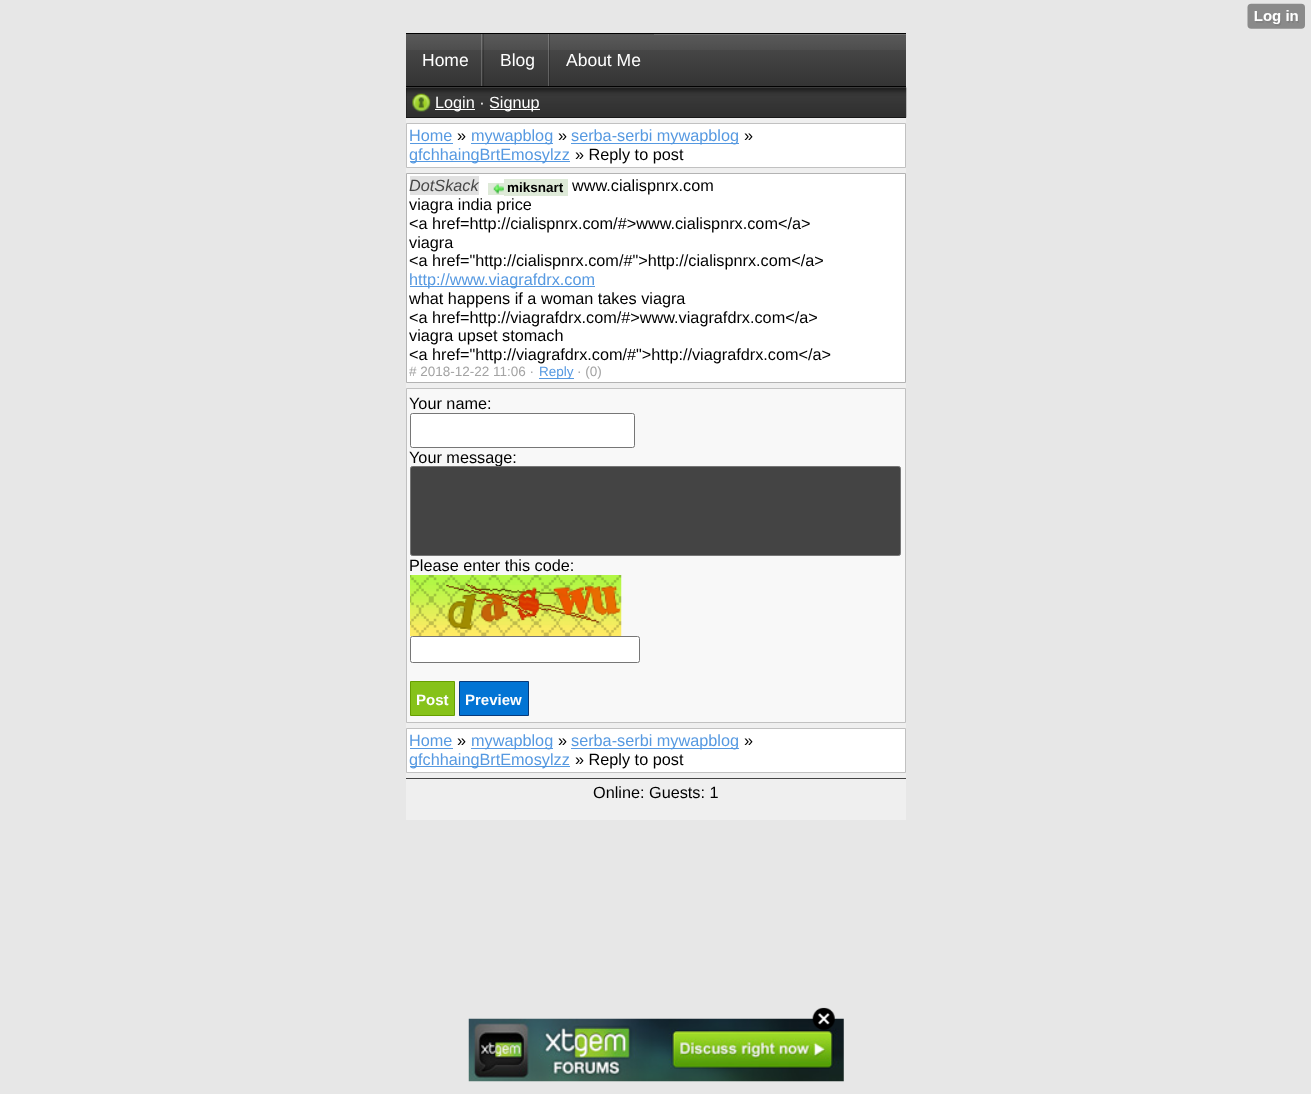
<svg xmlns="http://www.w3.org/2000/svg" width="1311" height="1094">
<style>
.a{font:17.5px Liberation Sans;fill:#fefefe}
.b{font:16.25px Liberation Sans;fill:#fefefe}
.c{font:16.25px Liberation Sans;fill:#5699e1}
.d{font:16.25px Liberation Sans;fill:#000}
.e{font:italic 16.25px Liberation Sans;fill:#474747}
.f{font:bold 13.5px Liberation Sans;fill:#000}
.g{font:13.5px Liberation Sans;fill:#a3a3a3}
.h{font:13.5px Liberation Sans;fill:#5699e1}
.i{font:bold 15px Liberation Sans;fill:#fefefe}
</style>
<defs>
<linearGradient id="g1" gradientUnits="userSpaceOnUse" x1="656" y1="34" x2="656" y2="86"><stop offset="0" stop-color="#5a5a5a"/><stop offset="0.3" stop-color="#4e4e4e"/><stop offset="0.3" stop-color="#464646"/><stop offset="1" stop-color="#343434"/></linearGradient>
<linearGradient id="g2" gradientUnits="userSpaceOnUse" x1="656" y1="86" x2="656" y2="139"><stop offset="0" stop-color="#5a5a5a"/><stop offset="0.3" stop-color="#4e4e4e"/><stop offset="0.3" stop-color="#464646"/><stop offset="1" stop-color="#343434"/></linearGradient>
<linearGradient id="g3" gradientUnits="userSpaceOnUse" x1="444" y1="34" x2="444" y2="86"><stop offset="0" stop-color="#5a5a5a"/><stop offset="0.3" stop-color="#4e4e4e"/><stop offset="0.3" stop-color="#464646"/><stop offset="1" stop-color="#343434"/></linearGradient>
<linearGradient id="g4" gradientUnits="userSpaceOnUse" x1="444" y1="34" x2="444" y2="86"><stop offset="0" stop-color="#7b7b7b"/><stop offset="0.3" stop-color="#717171"/><stop offset="0.3" stop-color="#6b6b6b"/><stop offset="1" stop-color="#5d5d5d"/></linearGradient>
<linearGradient id="g5" gradientUnits="userSpaceOnUse" x1="516" y1="34" x2="516" y2="86"><stop offset="0" stop-color="#5a5a5a"/><stop offset="0.3" stop-color="#4e4e4e"/><stop offset="0.3" stop-color="#464646"/><stop offset="1" stop-color="#343434"/></linearGradient>
<linearGradient id="g6" gradientUnits="userSpaceOnUse" x1="516" y1="34" x2="516" y2="86"><stop offset="0" stop-color="#484848"/><stop offset="0.3" stop-color="#3e3e3e"/><stop offset="0.3" stop-color="#383838"/><stop offset="1" stop-color="#2a2a2a"/></linearGradient>
<linearGradient id="g7" gradientUnits="userSpaceOnUse" x1="516" y1="34" x2="516" y2="86"><stop offset="0" stop-color="#7b7b7b"/><stop offset="0.3" stop-color="#717171"/><stop offset="0.3" stop-color="#6b6b6b"/><stop offset="1" stop-color="#5d5d5d"/></linearGradient>
<linearGradient id="g8" gradientUnits="userSpaceOnUse" x1="602" y1="34" x2="602" y2="86"><stop offset="0" stop-color="#5a5a5a"/><stop offset="0.3" stop-color="#4e4e4e"/><stop offset="0.3" stop-color="#464646"/><stop offset="1" stop-color="#343434"/></linearGradient>
<linearGradient id="g9" gradientUnits="userSpaceOnUse" x1="602" y1="34" x2="602" y2="86"><stop offset="0" stop-color="#484848"/><stop offset="0.3" stop-color="#3e3e3e"/><stop offset="0.3" stop-color="#383838"/><stop offset="1" stop-color="#2a2a2a"/></linearGradient>
</defs>
<rect width="100%" height="100%" fill="#e7e7e7"/>
<image href="1.png" x="1247" y="3" width="58" height="26"/>
<path fill="url(#g1)" d="M654 35h252v51H654z"/>
<path fill="url(#g2)" d="M406 87h500v1H406z"/>
<path fill="#737373" d="M654 34h252v1H654z"/>
<path fill="#010101" d="M483 33h423v1H483z"/>
<path fill="#010101" d="M406 86h500v1H406z"/>
<path fill="#010101" d="M406 33v52v-51h76v51h1v-52z"/>
<path fill="url(#g3)" d="M406 34h77v52H406z"/>
<path fill="url(#g4)" d="M481 34h1v52H481z"/>
<path fill="url(#g5)" d="M484 34h64v52H484z"/>
<path fill="url(#g6)" d="M483 34h1v52H483z"/>
<path fill="url(#g7)" d="M548 34h1v52H548z"/>
<path fill="url(#g8)" d="M550 34h104v52H550z"/>
<path fill="url(#g9)" d="M549 34h1v52H549z"/>
<path fill="#efefef" d="M406 118h500v702H406z"/>
<path fill="#000" d="M406 88h500v30H406z"/>
<image href="2.png" x="406" y="87" width="501" height="31"/>
<image href="3.png" x="412" y="93" width="19" height="19"/>
<path fill="#fff" d="M435 109h40v1H435z"/>
<path fill="#fff" d="M490 109h50v1H490z"/>
<path fill="#fff" stroke="#c1c1c1" d="M406.5 123.5h499v44H406.5z"/>
<path fill="#5699e1" d="M410 143h43v1H410z"/>
<path fill="#5699e1" d="M471 143h82v1H471z"/>
<path fill="#5699e1" d="M571 143h168v1H571z"/>
<path fill="#5699e1" d="M410 161h160v1H410z"/>
<path fill="#fff" stroke="#b3b3b3" d="M406.5 173.5h499v209H406.5z"/>
<path fill="#e1e1e1" d="M410 176h69v19H410z"/>
<path fill="#deead8" d="M488 183h16v12H488z"/>
<image href="4.png" x="493" y="183" width="11" height="11"/>
<path fill="#deead8" d="M504 179h64v17H504z"/>
<path fill="#5699e1" d="M410 286h185v1H410z"/>
<path fill="#5699e1" d="M539 378h35v1H539z"/>
<path fill="#f8f8f8" stroke="#c1c1c1" d="M406.5 388.5h499v334H406.5z"/>
<rect fill="#fff" stroke="#767676" x="410.5" y="413.5" width="224" height="34" rx="2"/>
<image href="5.png" x="410" y="575" width="212" height="62"/>
<rect fill="#fff" stroke="#767676" x="410.5" y="636.5" width="229" height="26" rx="2"/>
<path fill="#86c219" stroke="#669e00" d="M410.5 681.5h44v34H410.5z"/>
<path fill="#0274d4" stroke="#073a7b" d="M459.5 681.5h69v34H459.5z"/>
<path fill="#fff" stroke="#c1c1c1" d="M406.5 728.5h499v44H406.5z"/>
<path fill="#5699e1" d="M410 748h43v1H410z"/>
<path fill="#5699e1" d="M471 748h82v1H471z"/>
<path fill="#5699e1" d="M571 748h168v1H571z"/>
<path fill="#5699e1" d="M410 766h160v1H410z"/>
<path fill="#434343" d="M406 778h500v1H406z"/>
<image href="7.png" x="468" y="1018" width="376" height="64"/>
<image href="6.png" x="812" y="1007" width="23" height="23"/>
<text class="a" x="422" y="66">Home</text>
<text class="a" x="500" y="66">Blog</text>
<text class="a" x="566" y="66">About Me</text>
<text class="b" x="435" y="108">Login ·</text>
<text class="b" x="489" y="108">Signup</text>
<text class="c" x="409" y="141">Home</text>
<text class="d" x="457" y="141">»</text>
<text class="c" x="471" y="141">mywapblog</text>
<text class="d" x="558" y="141">»</text>
<text class="c" x="571" y="141">serba-serbi mywapblog</text>
<text class="d" x="744" y="141">»</text>
<text class="c" x="409" y="160">gfchhaingBrtEmosylzz</text>
<text class="d" x="575" y="160">» Reply to post</text>
<text class="e" x="409" y="191">DotSkack</text>
<text class="f" x="507" y="192">miksnart</text>
<text class="d" x="572" y="191">www.cialispnrx.com</text>
<text class="d" x="409" y="210">viagra india price</text>
<text class="d" x="409" y="229">&lt;a href=http://cialispnrx.com/#&gt;www.cialispnrx.com&lt;/a&gt;</text>
<text class="d" x="409" y="248">viagra</text>
<text class="d" x="409" y="266">&lt;a href="http://cialispnrx.com/#"&gt;http://cialispnrx.com&lt;/a&gt;</text>
<text class="c" x="409" y="285">http://www.viagrafdrx.com</text>
<text class="d" x="409" y="304">what happens if a woman takes viagra</text>
<text class="d" x="409" y="323">&lt;a href=http://viagrafdrx.com/#&gt;www.viagrafdrx.com&lt;/a&gt;</text>
<text class="d" x="409" y="341">viagra upset stomach</text>
<text class="d" x="409" y="360">&lt;a href="http://viagrafdrx.com/#"&gt;http://viagrafdrx.com&lt;/a&gt;</text>
<text class="g" x="409" y="376"># 2018-12-22 11:06 ·</text>
<text class="h" x="539" y="376">Reply</text>
<text class="g" x="577" y="376">· (0)</text>
<text class="d" x="409" y="409">Your name:</text>
<text class="d" x="409" y="463">Your message:</text>
<rect fill="#444" stroke="#767676" x="410.5" y="466.5" width="490" height="89" rx="2"/>
<text class="d" x="409" y="571">Please enter this code:</text>
<text class="i" x="416" y="705">Post</text>
<text class="i" x="465" y="705">Preview</text>
<text class="c" x="409" y="746">Home</text>
<text class="d" x="457" y="746">»</text>
<text class="c" x="471" y="746">mywapblog</text>
<text class="d" x="558" y="746">»</text>
<text class="c" x="571" y="746">serba-serbi mywapblog</text>
<text class="d" x="744" y="746">»</text>
<text class="c" x="409" y="765">gfchhaingBrtEmosylzz</text>
<text class="d" x="575" y="765">» Reply to post</text>
<text class="d" x="593" y="798">Online: Guests: 1</text>
</svg>
